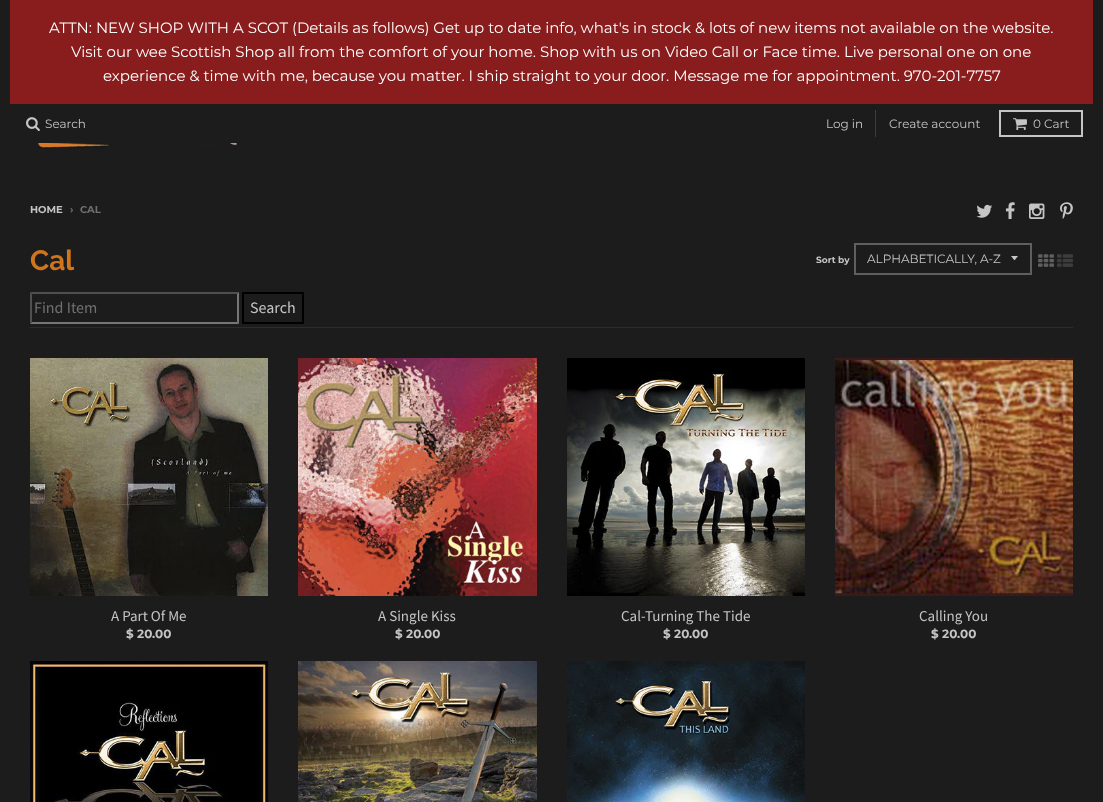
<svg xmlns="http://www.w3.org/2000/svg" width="1103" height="802">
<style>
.a{font:15px Montserrat;fill:#fff}
.b{font:12px Montserrat;fill:#c5c5c5}
.c{font:bold 10px Montserrat;fill:#c5c5c5}
.d{font:bold 10px Montserrat;fill:#707070}
.e{font:bold 28px Raleway;fill:#d1751d}
.f{font:bold 9px Montserrat;fill:#c5c5c5}
.g{font:16px Source Sans Pro;fill:#707070}
.h{font:16px Source Sans Pro;fill:#c5c5c5}
.i{font:15px Source Sans Pro;fill:#c5c5c5}
.j{font:bold 12px Montserrat;fill:#c5c5c5}
</style>
<rect width="100%" height="100%" fill="#1c1c1c"/>
<path fill="#891c1c" d="M10 0h1083v104H10z"/>
<image href="1.png" x="26" y="117" width="14" height="14"/>
<path fill="#3d3d3d" d="M875 110h1v27H875z"/>
<path fill="none" stroke="#c5c5c5" stroke-width="2" d="M1000 111h82v25H1000z"/>
<image href="2.png" x="1013" y="118" width="14" height="12"/>
<image href="3.png" x="17" y="143" width="224" height="6"/>
<image href="4.png" x="976" y="204" width="17" height="14"/>
<image href="5.png" x="1005" y="202" width="10" height="17"/>
<image href="6.png" x="1029" y="203" width="16" height="16"/>
<image href="7.png" x="1060" y="202" width="13" height="17"/>
<path fill="#2c2c2c" d="M30 327h1043v1H30z"/>
<path fill="#c5c5c5" d="M1011 256c4.5 5.5 2.5 5.5 7 0z"/>
<path fill="none" stroke="#5f5f5f" stroke-width="2" d="M855 244h176v30H855z"/>
<image href="8.png" x="1038" y="254" width="16" height="13"/>
<image href="9.png" x="1057" y="254" width="16" height="13"/>
<path fill="#4f4f4f" d="M30 292h209l-2 2h-205z"/>
<path fill="#767676" d="M239 292v32l-2-2v-28z"/>
<path fill="#767676" d="M239 324h-209l2-2h205z"/>
<path fill="#4f4f4f" d="M30 324v-32l2 2v28z"/>
<path fill="none" stroke="#000" stroke-width="2" d="M243 293h60v30H243z"/>
<image href="10.png" x="30" y="358" width="238" height="238"/>
<image href="11.png" x="298" y="358" width="239" height="238"/>
<image href="12.png" x="567" y="358" width="238" height="238"/>
<image href="13.png" x="835" y="358" width="238" height="238"/>
<image href="14.png" x="30" y="661" width="238" height="141"/>
<image href="15.png" x="298" y="661" width="239" height="141"/>
<image href="16.png" x="567" y="661" width="238" height="141"/>
<text class="a" x="49" y="33">ATTN: NEW SHOP WITH A SCOT (Details as follows) Get up to date info, what's in stock &amp; lots of new items not available on the website.</text>
<text class="a" x="71" y="57">Visit our wee Scottish Shop all from the comfort of your home. Shop with us on Video Call or Face time. Live personal one on one</text>
<text class="a" x="103" y="81">experience &amp; time with me, because you matter. I ship straight to your door. Message me for appointment. 970-201-7757</text>
<text class="b" x="45" y="128">Search</text>
<text class="b" x="826" y="128">Log in</text>
<text class="b" x="889" y="128">Create account</text>
<text class="b" x="1033" y="128">0 Cart</text>
<text class="c" x="30" y="213">HOME</text>
<text class="d" x="70" y="213">›</text>
<text class="d" x="80" y="213">CAL</text>
<text class="e" x="30" y="270">Cal</text>
<text class="f" x="816" y="263">Sort by</text>
<text class="b" x="867" y="263">ALPHABETICALLY, A-Z</text>
<text class="g" x="34" y="313">Find Item</text>
<text class="h" x="250" y="313">Search</text>
<text class="i" x="111" y="621">A Part Of Me</text>
<text class="j" x="126" y="638">$ 20.00</text>
<text class="i" x="378" y="621">A Single Kiss</text>
<text class="j" x="395" y="638">$ 20.00</text>
<text class="i" x="621" y="621">Cal-Turning The Tide</text>
<text class="j" x="663" y="638">$ 20.00</text>
<text class="i" x="919" y="621">Calling You</text>
<text class="j" x="931" y="638">$ 20.00</text>
</svg>
